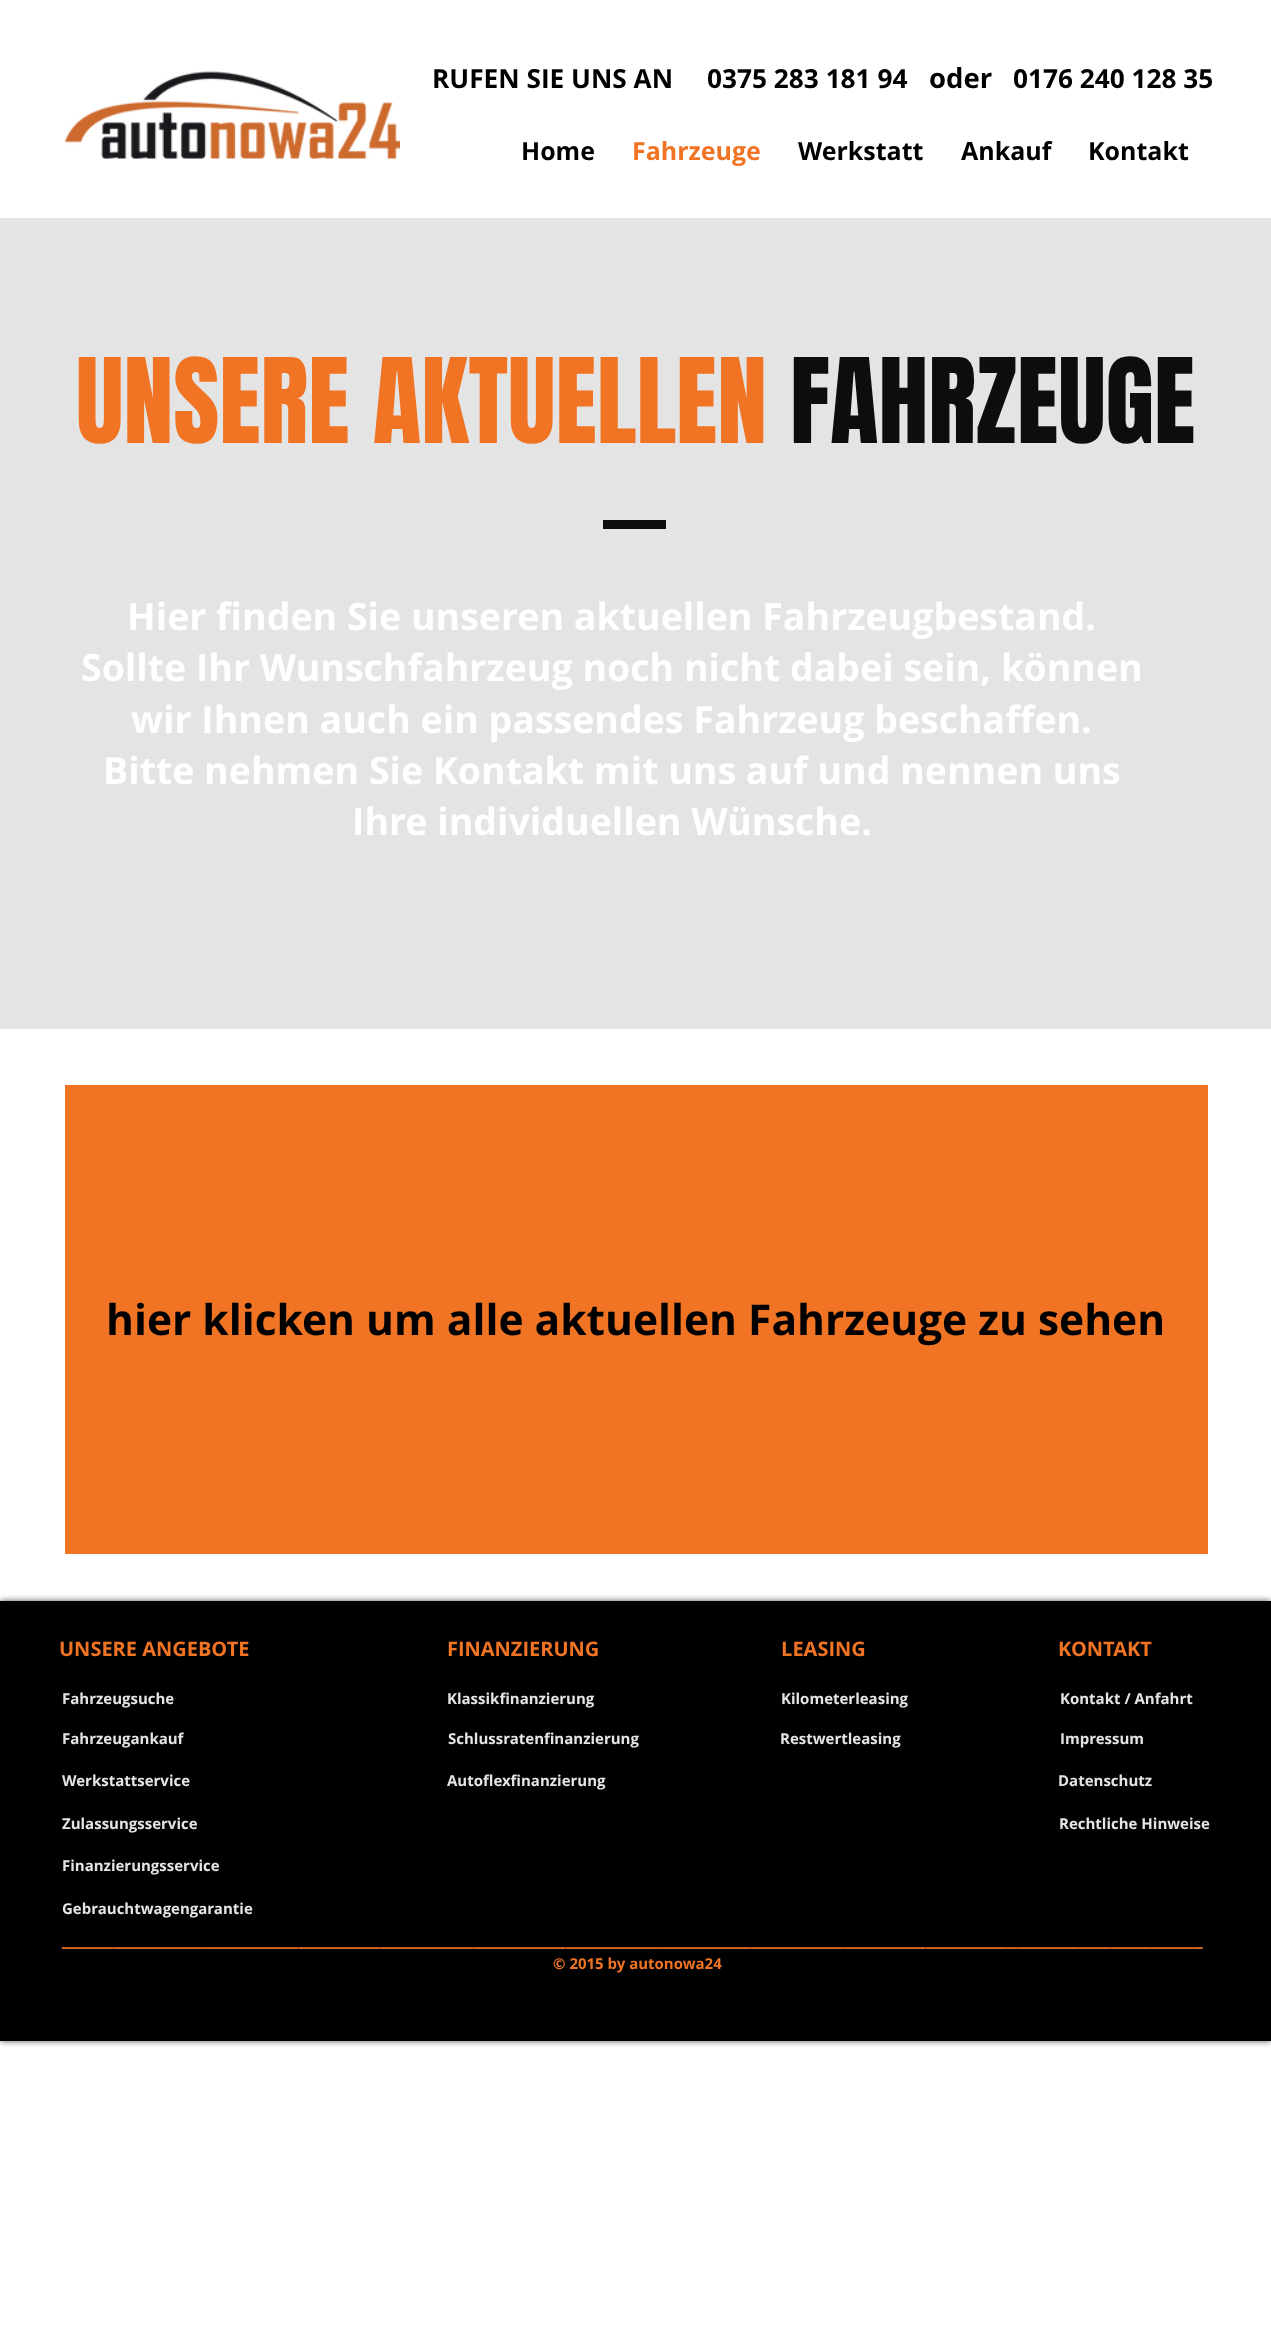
<svg xmlns="http://www.w3.org/2000/svg" width="1271" height="2350">
<style>
.a{font:bold 26.25px Open Sans;fill:#000}
.b{font:bold 27.5px Open Sans;fill:#000}
.c{font:bold 25px Open Sans;fill:#000}
.d{font:bold 25px Open Sans;fill:#f07423}
.e{font:100px Anton;fill:#f07423}
.f{font:100px Anton;fill:#0d0d0d}
.g{font:bold 37.5px Open Sans;fill:#fff}
.h{font:bold 42.5px Open Sans;fill:#000}
.i{font:bold 20px Open Sans;fill:#f07423}
.j{font:bold 15px Open Sans;fill:#e4e4e4}
.k{font:bold 15px Open Sans;fill:#f07423}
</style>
<rect width="100%" height="100%" fill="#fff"/>
<image href="1.png" x="64" y="71" width="336" height="88"/>
<path fill="#e4e4e4" d="M0 218h1271v811H0z"/>
<path fill="#0d0d0d" d="M603 520h63v9H603z"/>
<path fill="#f07423" d="M65 1085h1143v469H65z"/>
<path fill="#000000b3" filter="blur(3px)" d="M0 1601h1271v440H0z"/>
<path fill="#000" d="M0 1601h1271v440H0z"/>
<text class="a" xml:space="preserve" x="432" y="88">RUFEN SIE UNS AN     0375 283 181 94</text>
<text class="b" x="929" y="88">oder</text>
<text class="a" x="1013" y="88">0176 240 128 35</text>
<text class="c" x="521" y="160">Home</text>
<text class="d" x="632" y="160">Fahrzeuge</text>
<text class="c" x="798" y="160">Werkstatt</text>
<text class="c" x="961" y="160">Ankauf</text>
<text class="c" x="1088" y="160">Kontakt</text>
<text class="e" x="76" y="443">UNSERE AKTUELLEN</text>
<text class="f" x="790" y="443">FAHRZEUGE</text>
<text class="g" x="127" y="630">Hier finden Sie unseren aktuellen Fahrzeugbestand.</text>
<text class="g" x="81" y="681">Sollte Ihr Wunschfahrzeug noch nicht dabei sein, können</text>
<text class="g" x="131" y="733">wir Ihnen auch ein passendes Fahrzeug beschaffen.</text>
<text class="g" x="103" y="784">Bitte nehmen Sie Kontakt mit uns auf und nennen uns</text>
<text class="g" x="352" y="835">Ihre individuellen Wünsche.</text>
<text class="h" x="106" y="1335">hier klicken um alle aktuellen Fahrzeuge zu sehen</text>
<text class="i" xml:space="preserve" x="59" y="1656">UNSERE ANGEBOTE                                      FINANZIERUNG                                   LEASING                                     KONTAKT</text>
<text class="j" x="62" y="1704">Fahrzeugsuche</text>
<text class="j" x="447" y="1704">Klassikfinanzierung</text>
<text class="j" x="781" y="1704">Kilometerleasing</text>
<text class="j" x="1060" y="1704">Kontakt / Anfahrt</text>
<text class="j" x="62" y="1744">Fahrzeugankauf</text>
<text class="j" x="448" y="1744">Schlussratenfinanzierung</text>
<text class="j" x="780" y="1744">Restwertleasing</text>
<text class="j" x="1060" y="1744">Impressum</text>
<text class="j" x="62" y="1786">Werkstattservice</text>
<text class="j" x="447" y="1786">Autoflexfinanzierung</text>
<text class="j" x="1058" y="1786">Datenschutz</text>
<text class="j" x="62" y="1829">Zulassungsservice</text>
<text class="j" x="1059" y="1829">Rechtliche Hinweise</text>
<text class="j" x="62" y="1871">Finanzierungsservice</text>
<text class="j" x="62" y="1914">Gebrauchtwagengarantie</text>
<text class="d" x="62" y="1945">_______________________________________________________________________________________________________________</text>
<text class="k" x="553" y="1969">© 2015 by autonowa24</text>
</svg>
